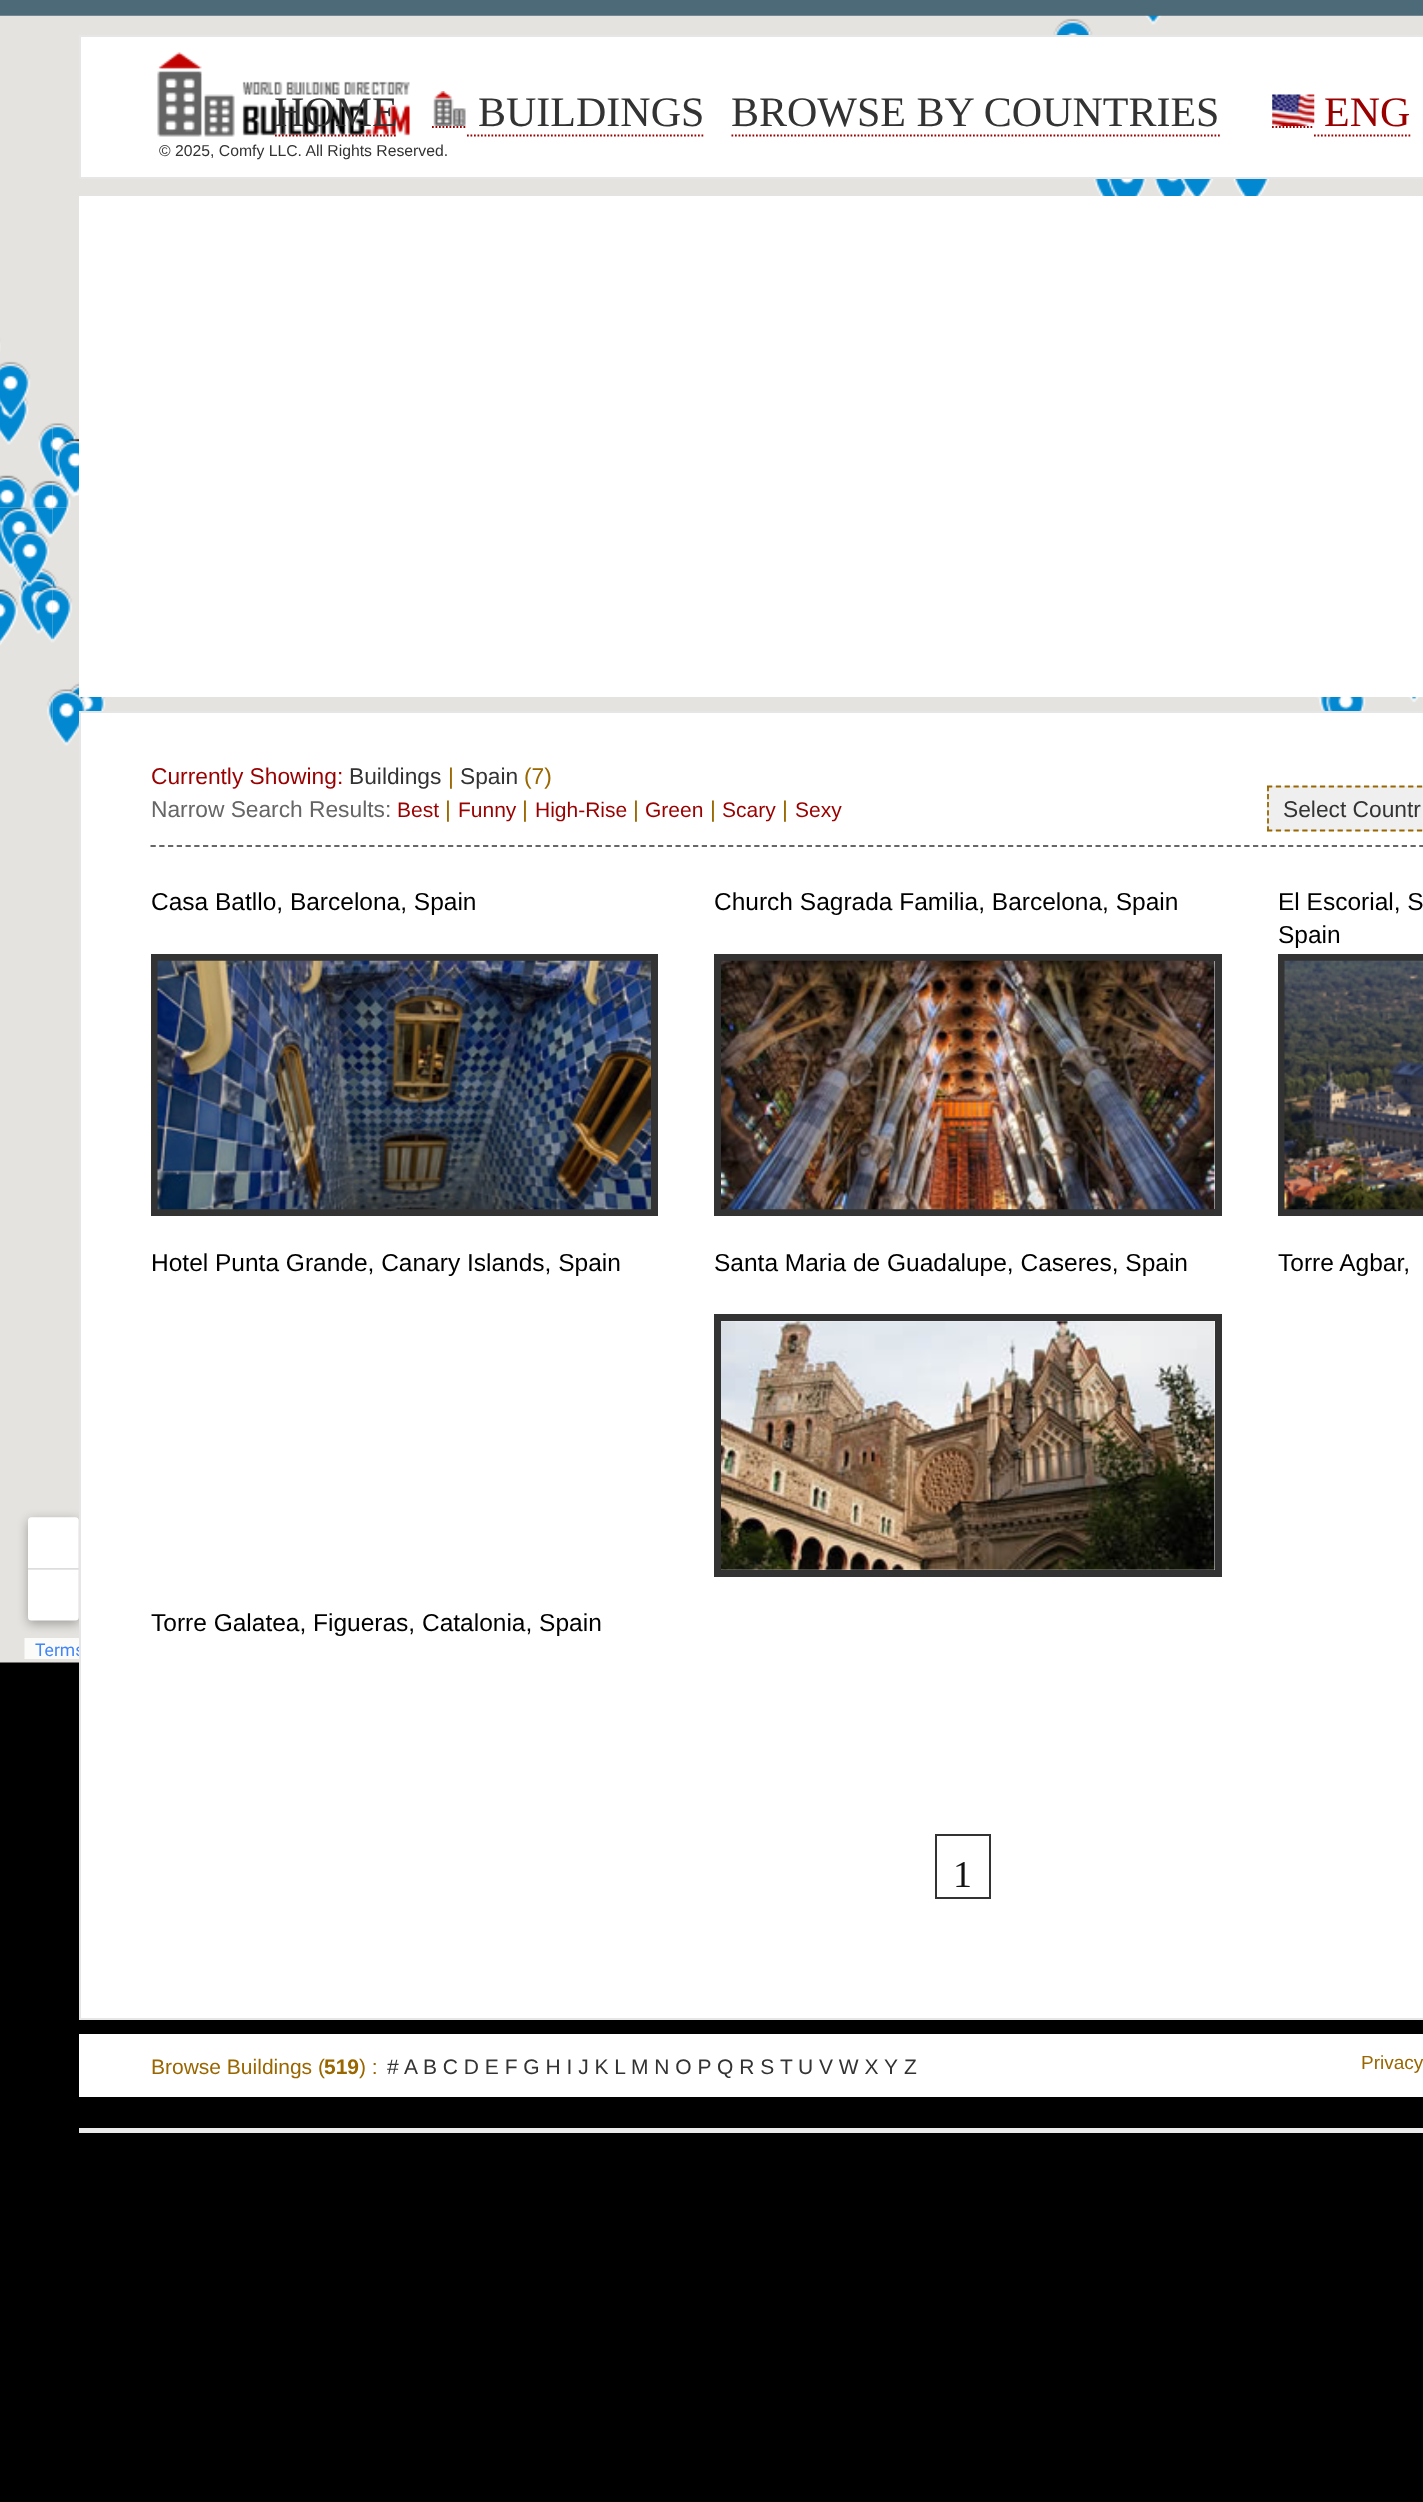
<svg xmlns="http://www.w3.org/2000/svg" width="1423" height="2502">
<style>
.a{font:42px Liberation Serif;fill:#333}
.b{font:42px Liberation Serif;fill:#900}
.c{font:15.75px Liberation Sans;fill:#333}
.d{font:22.75px Liberation Sans;fill:#900}
.e{font:22.75px Liberation Sans;fill:#333}
.f{font:22.75px Liberation Sans;fill:#960}
.g{font:22.75px Liberation Sans;fill:#666}
.h{font:21px Liberation Sans;fill:#900}
.i{font:24.5px Liberation Sans;fill:#000}
.j{font:38px Liberation Serif;fill:#131313}
.k{font:21px Liberation Sans;fill:#960}
.l{font:bold 21px Liberation Sans;fill:#960}
.m{font:21px Liberation Sans;fill:#333}
.n{font:19px Liberation Sans;fill:#960}
</style>
<rect width="100%" height="100%" fill="#000"/>
<image href="1.png" x="0" y="0" width="1423" height="1663"/>
<path fill="#fff" stroke="#e6e6e6" stroke-width="2" d="M80 36h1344v142H80z"/>
<image href="2.png" x="157" y="52" width="253" height="85"/>
<path fill="none" stroke="#900" stroke-width="1.8" stroke-dasharray="1.75 1.75" d="M275 135.5h122"/>
<image href="3.png" x="433" y="91" width="33" height="35"/>
<path fill="none" stroke="#900" stroke-width="1.8" stroke-dasharray="1.75 1.75" d="M432 127h35"/>
<path fill="none" stroke="#900" stroke-width="1.8" stroke-dasharray="1.75 1.75" d="M467 135.5h238"/>
<path fill="none" stroke="#900" stroke-width="1.8" stroke-dasharray="1.75 1.75" d="M731.5 135.5h488.5"/>
<image href="4.png" x="1272" y="94" width="43" height="32"/>
<path fill="none" stroke="#900" stroke-width="1.8" stroke-dasharray="1.75 1.75" d="M1272 127h42"/>
<path fill="none" stroke="#900" stroke-width="1.8" stroke-dasharray="1.75 1.75" d="M1314 135.5h96.5"/>
<path fill="#fff" d="M79 196h1344v501H79z"/>
<path fill="#fff" stroke="#e6e6e6" stroke-width="2" d="M80 712h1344v1307H80z"/>
<path fill="none" stroke="#666" stroke-width="1.8" stroke-dasharray="5.25 3.5" d="M150.5 846h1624"/>
<path fill="#efefef" d="M1267 786h156v45H1267z"/>
<path fill="none" stroke="#960" stroke-width="1.8" stroke-dasharray="5.25 3.57" d="M1267 786.5h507.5"/>
<path fill="none" stroke="#960" stroke-width="1.8" stroke-dasharray="5.25 3.57" d="M1267 830.5h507.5"/>
<path fill="none" stroke="#960" stroke-width="1.8" stroke-dasharray="5.25 2.8" d="M1268 786v45"/>
<path fill="none" stroke="#333" stroke-width="7" d="M154.5 957.5h500v255H154.5z"/>
<image href="5.png" x="157" y="960" width="494" height="250"/>
<path fill="none" stroke="#333" stroke-width="7" d="M717.5 957.5h501v255H717.5z"/>
<image href="6.png" x="721" y="960" width="494" height="250"/>
<path fill="none" stroke="#333" stroke-width="7" d="M1281.5 957.5h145v255H1281.5z"/>
<image href="7.png" x="1284" y="960" width="139" height="250"/>
<path fill="none" stroke="#333" stroke-width="7" d="M717.5 1317.5h501v256H717.5z"/>
<image href="8.png" x="721" y="1321" width="494" height="249"/>
<path fill="none" stroke="#333" stroke-width="2" d="M936 1835h54v63H936z"/>
<path fill="#fff" d="M79 2034h1344v63H79z"/>
<path fill="#eaeaea" d="M79 2128h1344v5H79z"/>
<text class="a" x="274" y="126">HOME</text>
<text class="a" x="478" y="126">BUILDINGS</text>
<text class="a" x="731" y="126">BROWSE BY COUNTRIES</text>
<text class="b" x="1324" y="126">ENG</text>
<text class="c" x="159" y="156">© 2025, Comfy LLC. All Rights Reserved.</text>
<text class="d" x="151" y="784">Currently Showing:</text>
<text class="e" x="349" y="784">Buildings</text>
<text class="f" x="448" y="784">|</text>
<text class="e" x="460" y="784">Spain</text>
<text class="f" x="524" y="784">(7)</text>
<text class="g" x="151" y="817">Narrow Search Results:</text>
<text class="h" x="397" y="817">Best</text>
<text class="f" x="445" y="817">|</text>
<text class="h" x="458" y="817">Funny</text>
<text class="f" x="522" y="817">|</text>
<text class="h" x="535" y="817">High-Rise</text>
<text class="f" x="633" y="817">|</text>
<text class="h" x="645" y="817">Green</text>
<text class="f" x="710" y="817">|</text>
<text class="h" x="722" y="817">Scary</text>
<text class="f" x="782" y="817">|</text>
<text class="h" x="795" y="817">Sexy</text>
<text class="e" x="1283" y="817">Select Countr</text>
<text class="i" x="151" y="910">Casa Batllo, Barcelona, Spain</text>
<text class="i" x="714" y="910">Church Sagrada Familia, Barcelona, Spain</text>
<text class="i" x="1278" y="910">El Escorial, S</text>
<text class="i" x="1278" y="943">Spain</text>
<text class="i" x="151" y="1271">Hotel Punta Grande, Canary Islands, Spain</text>
<text class="i" x="714" y="1271">Santa Maria de Guadalupe, Caseres, Spain</text>
<text class="i" x="1278" y="1271">Torre Agbar,</text>
<text class="i" x="151" y="1631">Torre Galatea, Figueras, Catalonia, Spain</text>
<text class="j" x="953" y="1887">1</text>
<text class="k" x="151" y="2074">Browse Buildings (</text>
<text class="l" x="324" y="2074">519</text>
<text class="k" x="359" y="2074">) :</text>
<text class="m" x="387" y="2074">#</text>
<text class="m" x="404" y="2074">A</text>
<text class="m" x="423" y="2074">B C D E F G H I J K L</text>
<text class="m" x="631" y="2074">M N O P</text>
<text class="m" x="717" y="2074">Q R S</text>
<text class="m" x="780" y="2074">T</text>
<text class="m" x="798" y="2074">U V W X</text>
<text class="m" x="884" y="2074">Y</text>
<text class="m" x="904" y="2074">Z</text>
<text class="n" x="1361" y="2069">Privacy</text>
</svg>
